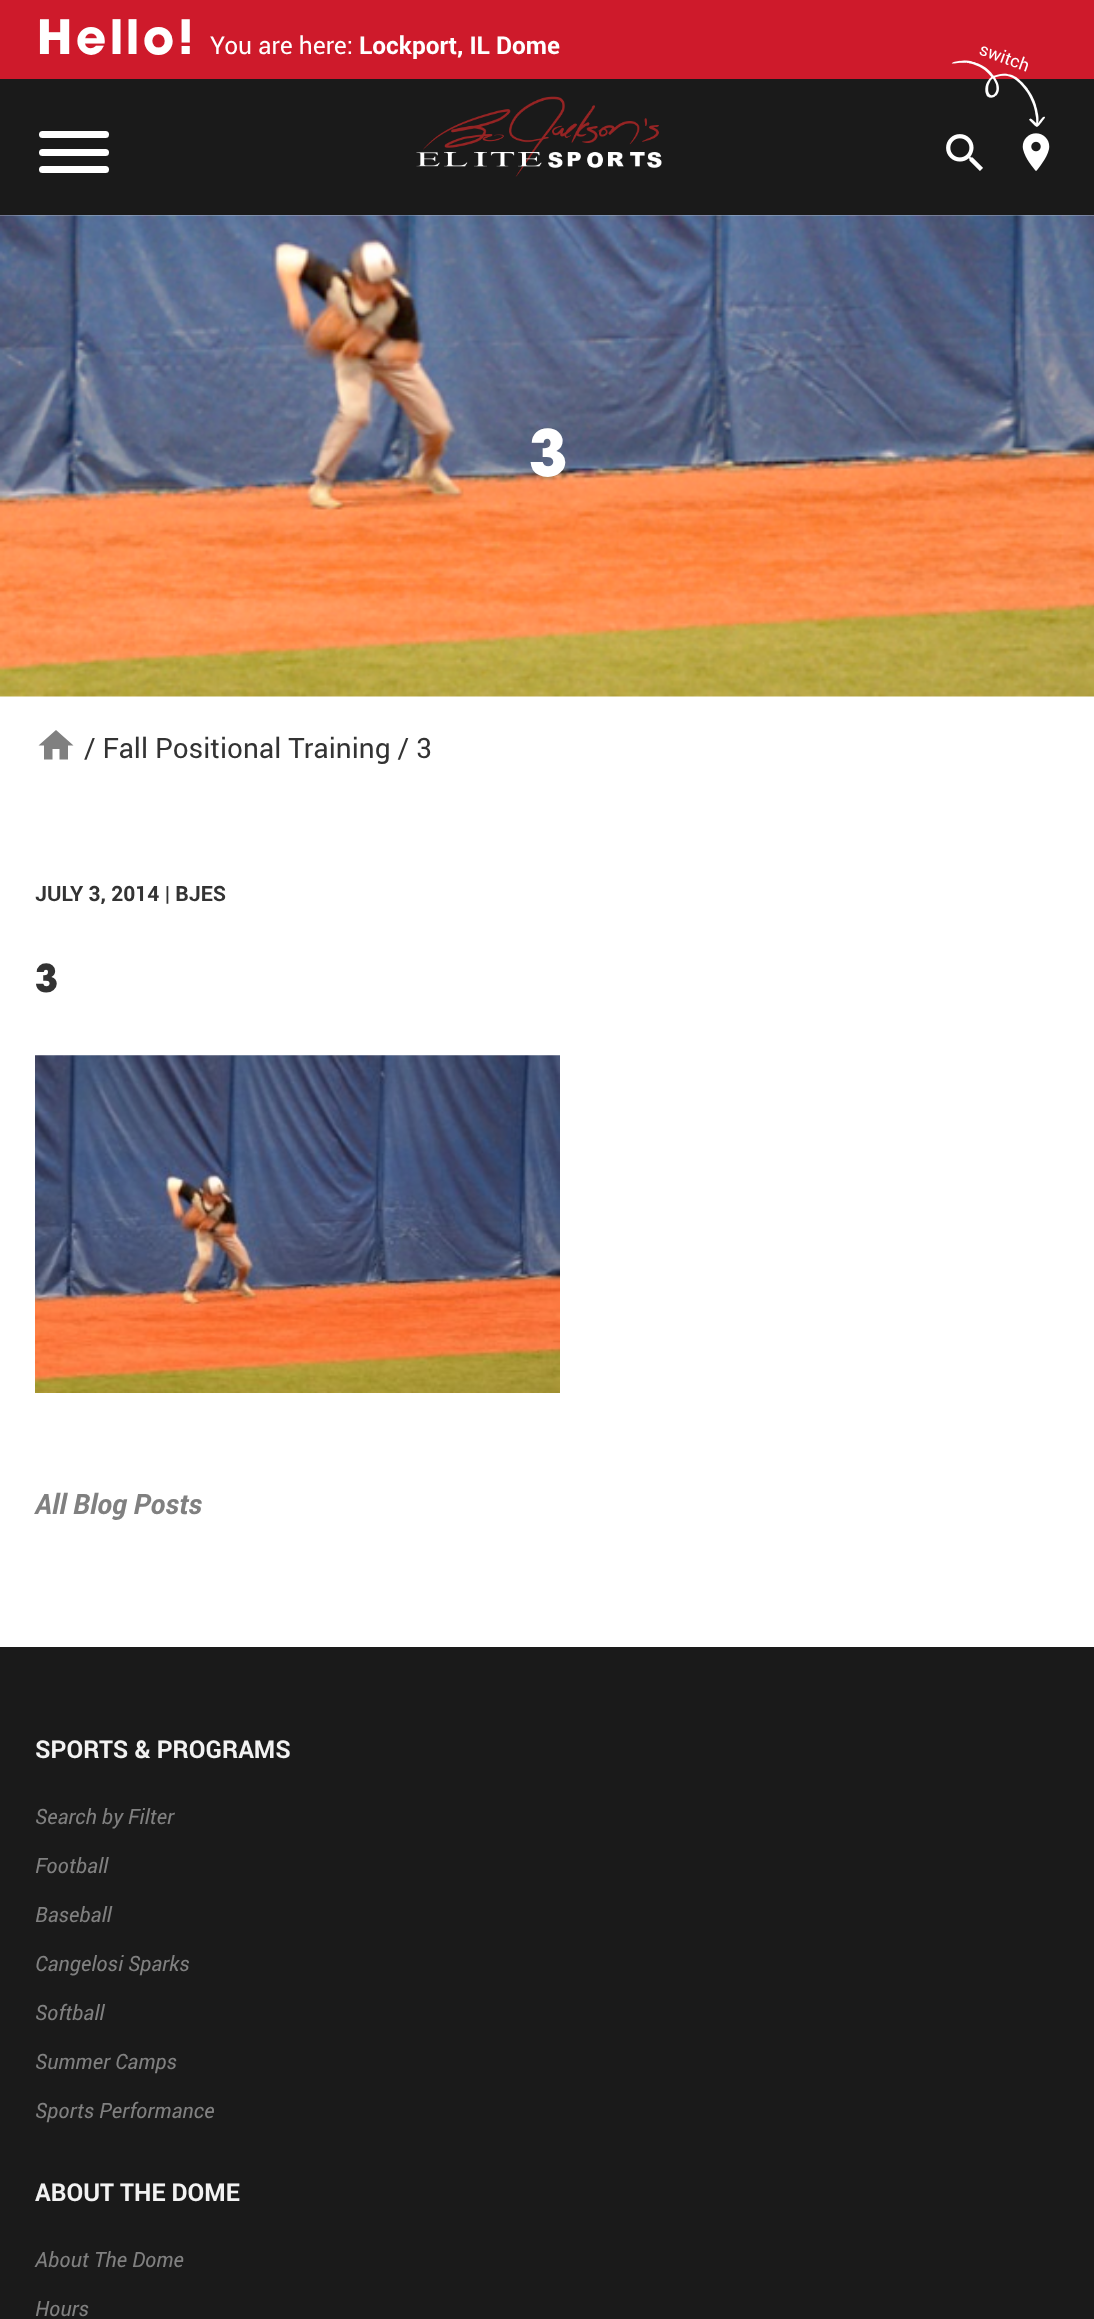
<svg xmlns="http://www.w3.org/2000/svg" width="1094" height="2319">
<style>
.a{font:bold 52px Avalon;fill:#fff}
.b{font:24.5px Roboto;fill:#fff}
.c{font:bold 24.5px Roboto;fill:#fff}
.d{font:17.5px Roboto;fill:#fff}
.e{font:bold 70px Avalon;fill:#fff}
.f{font:28px Roboto;fill:#333}
.g{font:bold 21px Roboto;fill:#333}
.h{font:bold 42px Avalon;fill:#333}
.i{font:italic bold 28px Roboto;fill:#808080}
.j{font:bold 24.5px Roboto;fill:#f2f2f2}
.k{font:italic 21px Roboto;fill:#808080}
</style>
<rect width="100%" height="100%" fill="#fff"/>
<path fill="#1a1a1a" d="M0 79h1094v136H0z"/>
<path fill="#ce1a2b" d="M0 0h1094v79H0z"/>
<image href="1.png" x="951" y="60" width="94" height="67"/>
<image href="2.png" x="416" y="96" width="246" height="81"/>
<rect fill="#fff" x="39" y="166" width="70" height="7" rx="3.5"/>
<rect fill="#fff" x="39" y="131" width="70" height="7" rx="3.5"/>
<rect fill="#fff" x="39" y="149" width="70" height="7" rx="3.5"/>
<image href="3.png" x="946" y="134" width="37" height="37"/>
<image href="4.png" x="1022" y="133" width="28" height="38"/>
<image href="5.png" x="0" y="215" width="1094" height="482"/>
<path fill="#808080" d="M52.5 759.5h-8.5v-14h-5.5l17.5-15.5l17.5 15.5h-5.5v14h-8.5v-10.5h-7z"/>
<image href="6.png" x="35" y="1055" width="525" height="338"/>
<path fill="#1a1a1a" d="M0 1647h1094v672H0z"/>
<text class="a" x="37" y="54">H</text>
<text class="a" x="76" y="54">e</text>
<text class="a" x="110" y="54">l</text>
<text class="a" x="126" y="54">l</text>
<text class="a" x="143" y="54">o</text>
<text class="a" x="178" y="54">!</text>
<text class="b" x="210" y="54">You are here:</text>
<text class="c" x="359" y="54">Lockport, IL Dome</text>
<text class="d" x="978" y="54" transform="rotate(20 978 54)">switch</text>
<text class="e" x="529" y="476">3</text>
<text class="f" x="84" y="758">/ Fall Positional Training / 3</text>
<text class="g" x="35" y="901">JULY 3, 2014 | BJES</text>
<text class="h" x="35" y="992">3</text>
<text class="i" x="35" y="1514">All Blog Posts</text>
<text class="j" x="35" y="1758">SPORTS &amp; PROGRAMS</text>
<text class="k" x="35" y="1824">Search by Filter</text>
<text class="k" x="35" y="1873">Football</text>
<text class="k" x="35" y="1922">Baseball</text>
<text class="k" x="35" y="1971">Cangelosi Sparks</text>
<text class="k" x="35" y="2020">Softball</text>
<text class="k" x="35" y="2069">Summer Camps</text>
<text class="k" x="35" y="2118">Sports Performance</text>
<text class="j" x="35" y="2201">ABOUT THE DOME</text>
<text class="k" x="35" y="2267">About The Dome</text>
<text class="k" x="35" y="2316">Hours</text>
</svg>
